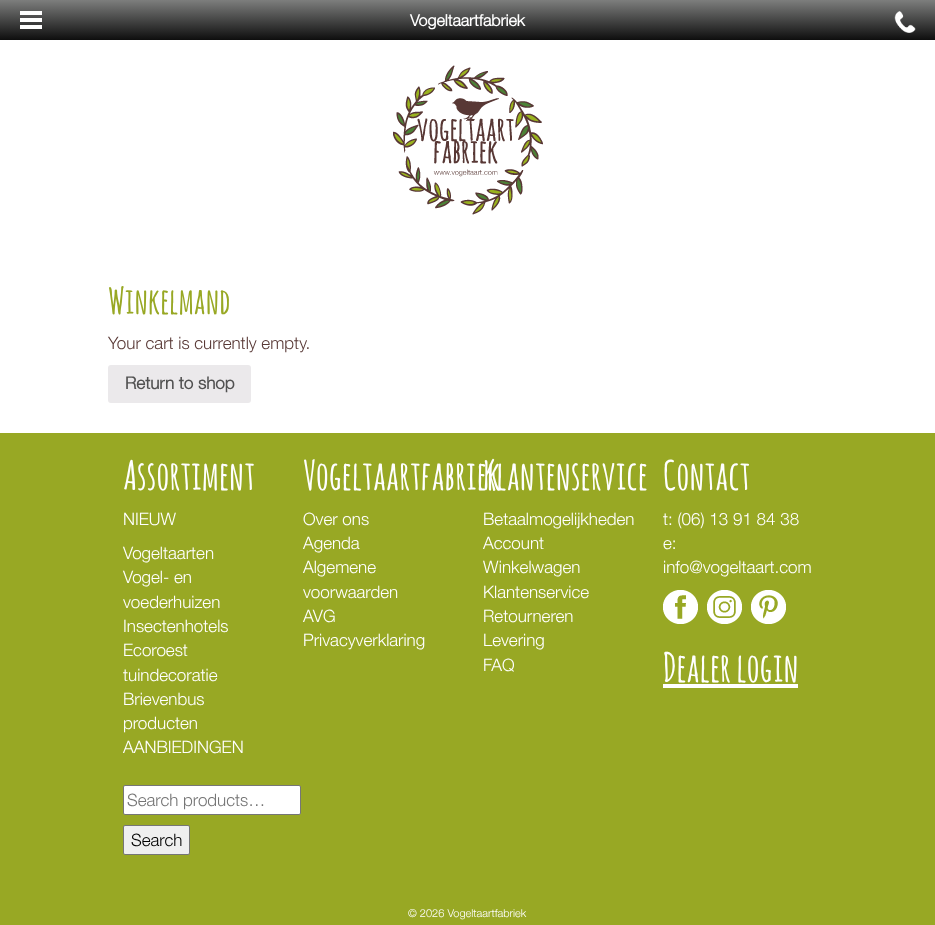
<svg xmlns="http://www.w3.org/2000/svg" width="935" height="925">
<style>
.a{font:bold 16px Helvetica Neue;fill:#fff}
.b{font:bold 36px Amatic SC;fill:#98a824}
.c{font:300 17px Helvetica Neue;fill:#583835}
.d{font:bold 17px Helvetica Neue;fill:#515151}
.e{font:bold 40px Amatic SC;fill:#fff}
.f{font:300 17px Helvetica Neue;fill:#fff}
.g{font:300 17px Helvetica Neue;fill:#757575}
.h{font:300 17px Helvetica Neue;fill:#000}
.i{font:300 11px Helvetica Neue;fill:#fff}
</style>
<defs>
<linearGradient id="g1" gradientUnits="userSpaceOnUse" x1="468" y1="0" x2="468" y2="40"><stop offset="0" stop-color="#7d7e7d"/><stop offset="1" stop-color="#0e0e0e"/></linearGradient>
</defs>
<rect width="100%" height="100%" fill="#fff"/>
<path fill="url(#g1)" d="M0 0h935v40H0z"/>
<image href="1.png" x="20" y="11" width="22" height="18"/>
<image href="2.png" x="894" y="11" width="22" height="22"/>
<image href="3.png" x="393" y="65" width="150" height="150"/>
<rect fill="#ebe9eb" x="108" y="365" width="143" height="38" rx="3"/>
<path fill="#98a824" d="M0 433h935v492H0z"/>
<rect fill="#fff" stroke="#767676" x="123.5" y="785.5" width="177" height="29" rx="1.5"/>
<rect fill="#efefef" stroke="#767676" x="123.5" y="825.5" width="66" height="29" rx="1.5"/>
<image href="4.png" x="663" y="590" width="35" height="34"/>
<image href="5.png" x="707" y="590" width="35" height="34"/>
<image href="6.png" x="751" y="590" width="35" height="34"/>
<path fill="#fff" d="M663 684h135v4H663z"/>
<text class="a" x="410" y="26">Vogeltaartfabriek</text>
<text class="b" x="108" y="314">Winkelmand</text>
<text class="c" x="108" y="349">Your cart is currently empty.</text>
<text class="d" x="125" y="389">Return to shop</text>
<text class="e" x="123" y="490">Assortiment</text>
<text class="f" x="123" y="525">NIEUW</text>
<text class="f" x="123" y="559">Vogeltaarten</text>
<text class="f" x="123" y="583">Vogel- en</text>
<text class="f" x="123" y="608">voederhuizen</text>
<text class="f" x="123" y="632">Insectenhotels</text>
<text class="f" x="123" y="656">Ecoroest</text>
<text class="f" x="123" y="681">tuindecoratie</text>
<text class="f" x="123" y="705">Brievenbus</text>
<text class="f" x="123" y="729">producten</text>
<text class="f" x="123" y="753">AANBIEDINGEN</text>
<text class="g" x="127" y="806">Search products…</text>
<text class="h" x="131" y="846">Search</text>
<text class="e" x="303" y="490">Vogeltaartfabriek</text>
<text class="f" x="303" y="525">Over ons</text>
<text class="f" x="303" y="549">Agenda</text>
<text class="f" x="303" y="573">Algemene</text>
<text class="f" x="303" y="598">voorwaarden</text>
<text class="f" x="303" y="622">AVG</text>
<text class="f" x="303" y="646">Privacyverklaring</text>
<text class="e" x="483" y="490">Klantenservice</text>
<text class="f" x="483" y="525">Betaalmogelijkheden</text>
<text class="f" x="483" y="549">Account</text>
<text class="f" x="483" y="573">Winkelwagen</text>
<text class="f" x="483" y="598">Klantenservice</text>
<text class="f" x="483" y="622">Retourneren</text>
<text class="f" x="483" y="646">Levering</text>
<text class="f" x="483" y="671">FAQ</text>
<text class="e" x="663" y="490">Contact</text>
<text class="f" x="663" y="525">t: (06) 13 91 84 38</text>
<text class="f" x="663" y="549">e:</text>
<text class="f" x="663" y="573">info@vogeltaart.com</text>
<text class="e" x="663" y="682">Dealer login</text>
<text class="i" x="408" y="917">© 2026 Vogeltaartfabriek</text>
</svg>
